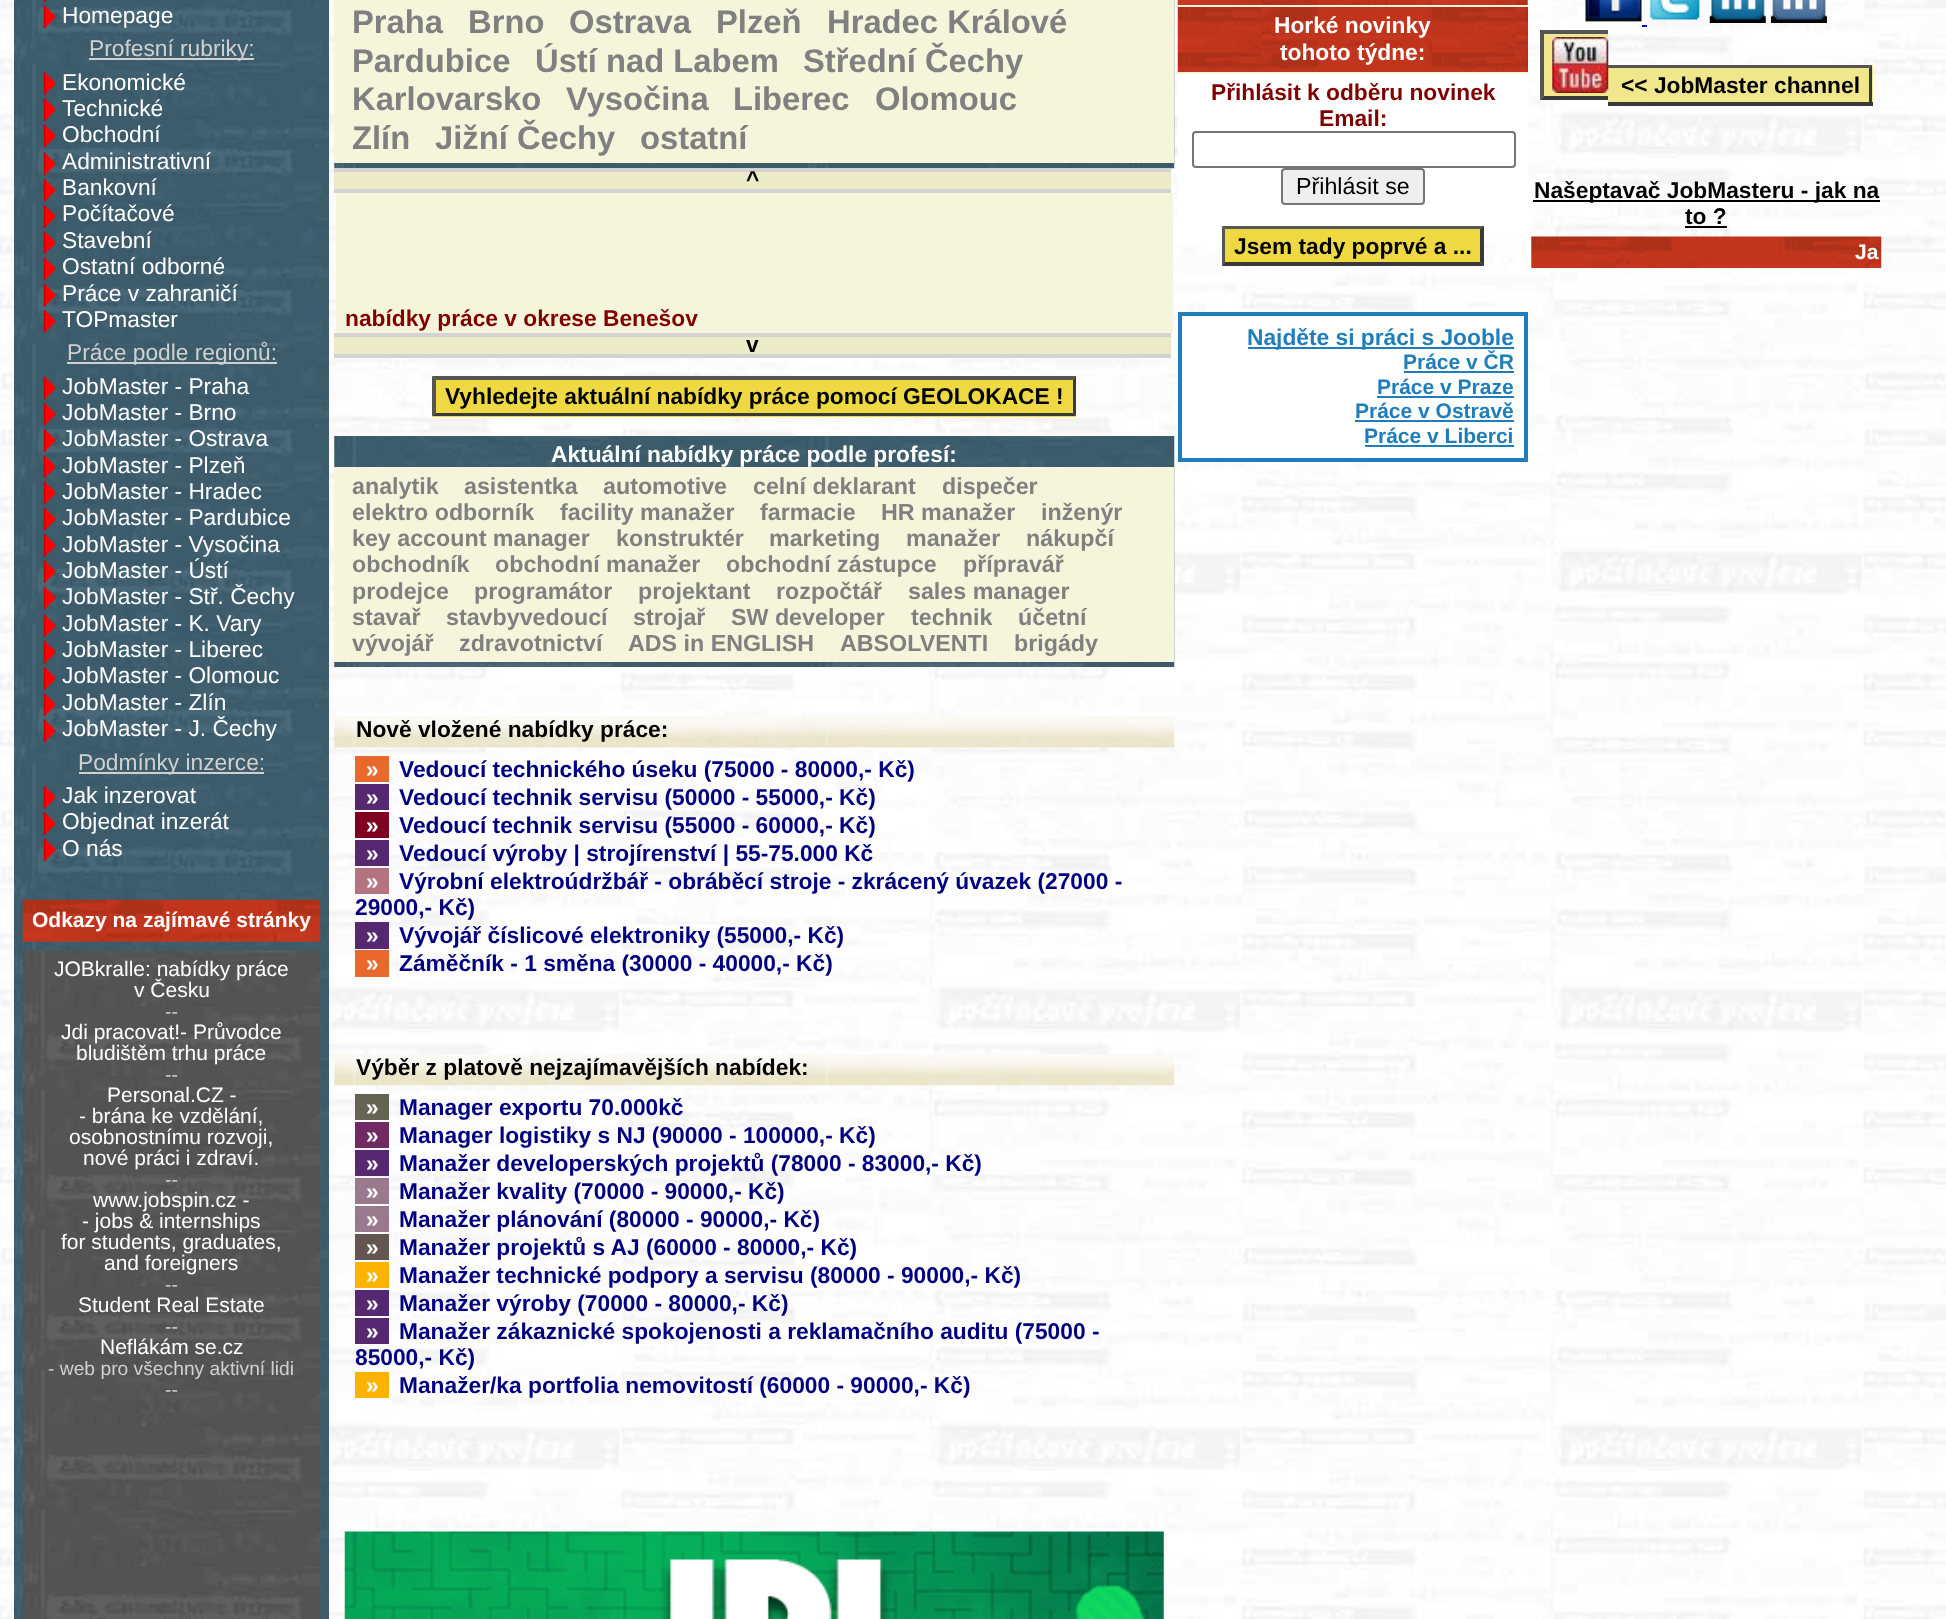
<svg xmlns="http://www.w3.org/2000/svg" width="1946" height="1619">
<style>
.a{font:22.75px Liberation Sans;fill:#fff}
.b{font:22.75px Liberation Sans;fill:#d0d0d0}
.c{font:bold 21px Liberation Sans;fill:#fff}
.d{font:21px Liberation Sans;fill:#fff}
.e{font:19.25px Liberation Sans;fill:#d0d0d0}
.f{font:bold 32.75px Liberation Sans;fill:#808080}
.g{font:bold 22.75px Liberation Sans;fill:#000}
.h{font:bold 22.75px Liberation Sans;fill:#800000}
.i{font:bold 22.75px Liberation Sans;fill:#fff}
.j{font:bold 23.25px Liberation Sans;fill:#808080}
.k{font:bold 22.75px Liberation Sans;fill:#000080}
.l{font:23.25px Liberation Sans;fill:#000}
.m{font:bold 22.75px Liberation Sans;fill:#1e7ebc}
.n{font:bold 21px Liberation Sans;fill:#1e7ebc}
</style>
<rect width="100%" height="100%" fill="#fff"/>
<image href="1.png" x="0" y="0" width="1946" height="1619"/>
<image href="2.png" x="14" y="0" width="315" height="1619"/>
<image href="3.png" x="43" y="0" width="5" height="2"/>
<image href="4.png" x="43" y="5" width="13" height="24"/>
<path fill="#d0d0d0" d="M89 58h165v2H89z"/>
<image href="5.png" x="43" y="72" width="13" height="23"/>
<image href="6.png" x="43" y="98" width="13" height="23"/>
<image href="7.png" x="43" y="124" width="13" height="24"/>
<image href="8.png" x="43" y="152" width="13" height="24"/>
<image href="9.png" x="43" y="178" width="13" height="24"/>
<image href="10.png" x="43" y="205" width="13" height="23"/>
<image href="11.png" x="43" y="231" width="13" height="23"/>
<image href="12.png" x="43" y="257" width="13" height="24"/>
<image href="13.png" x="43" y="283" width="13" height="24"/>
<image href="14.png" x="43" y="310" width="13" height="23"/>
<path fill="#d0d0d0" d="M67 362h210v2H67z"/>
<image href="15.png" x="43" y="376" width="13" height="24"/>
<image href="16.png" x="43" y="402" width="13" height="24"/>
<image href="17.png" x="43" y="429" width="13" height="23"/>
<image href="18.png" x="43" y="455" width="13" height="23"/>
<image href="19.png" x="43" y="481" width="13" height="24"/>
<image href="20.png" x="43" y="507" width="13" height="24"/>
<image href="21.png" x="43" y="534" width="13" height="23"/>
<image href="22.png" x="43" y="560" width="13" height="23"/>
<image href="23.png" x="43" y="586" width="13" height="24"/>
<image href="24.png" x="43" y="614" width="13" height="24"/>
<image href="25.png" x="43" y="640" width="13" height="24"/>
<image href="26.png" x="43" y="667" width="13" height="23"/>
<image href="27.png" x="43" y="693" width="13" height="23"/>
<image href="28.png" x="43" y="719" width="13" height="24"/>
<path fill="#d0d0d0" d="M79 772h185v2H79z"/>
<image href="29.png" x="43" y="786" width="13" height="23"/>
<image href="30.png" x="43" y="812" width="13" height="23"/>
<image href="31.png" x="43" y="838" width="13" height="24"/>
<image href="32.png" x="22" y="899" width="299" height="43"/>
<image href="33.png" x="22" y="950" width="299" height="669"/>
<image href="34.png" x="334" y="0" width="841" height="169"/>
<path fill="#f5f5dc" d="M334 0h840v163H334z"/>
<path fill="#ebebc8" d="M334 172h837v17H334z"/>
<path fill="#d3d3d3" d="M334 168h837v4H334z"/>
<path fill="#d3d3d3" d="M334 189h837v4H334z"/>
<path fill="#f5f5dc" d="M336 193h837v140H336z"/>
<path fill="#ebebc8" d="M334 337h837v17H334z"/>
<path fill="#d3d3d3" d="M334 333h837v4H334z"/>
<path fill="#d3d3d3" d="M334 354h837v4H334z"/>
<path fill="#efd942" d="M432 376h644v41H432z"/>
<path fill="#555" d="M432 376h644l-3 4h-637z"/>
<path fill="#393939" d="M1076 376v40l-3-3v-33z"/>
<path fill="#393939" d="M1076 416h-644l4-3h637z"/>
<path fill="#555" d="M432 416v-40l4 4v33z"/>
<image href="35.png" x="334" y="436" width="841" height="231"/>
<path fill="#f5f5dc" d="M334 467h840v195H334z"/>
<image href="36.png" x="334" y="716" width="841" height="32"/>
<path fill="#e9692c" d="M355 756h34v26H355z"/>
<path fill="#562872" d="M355 784h34v26H355z"/>
<path fill="#800020" d="M355 812h34v26H355z"/>
<path fill="#562872" d="M355 840h34v26H355z"/>
<path fill="#b57281" d="M355 868h34v26H355z"/>
<path fill="#562872" d="M355 922h34v27H355z"/>
<path fill="#e9692c" d="M355 950h34v27H355z"/>
<image href="37.png" x="334" y="1054" width="841" height="32"/>
<path fill="#656452" d="M355 1094h34v26H355z"/>
<path fill="#702963" d="M355 1122h34v26H355z"/>
<path fill="#562872" d="M355 1150h34v26H355z"/>
<path fill="#997a8d" d="M355 1178h34v26H355z"/>
<path fill="#997a8d" d="M355 1206h34v26H355z"/>
<path fill="#645452" d="M355 1234h34v26H355z"/>
<path fill="#ffb300" d="M355 1262h34v26H355z"/>
<path fill="#562872" d="M355 1290h34v26H355z"/>
<path fill="#562872" d="M355 1318h34v26H355z"/>
<path fill="#ffb300" d="M355 1372h34v26H355z"/>
<image href="38.png" x="344" y="1531" width="820" height="88"/>
<image href="39.png" x="1177" y="0" width="351" height="8"/>
<path fill="#f5f5dc" d="M1178 5h350v2H1178z"/>
<path fill="#bb1c20" d="M1178 7h350v65H1178z"/>
<image href="40.png" x="1177" y="7" width="351" height="67"/>
<path fill="#f5f5dc" d="M1178 72h350v2H1178z"/>
<path fill="#fff" d="M1178 74h350v159H1178z"/>
<rect fill="none" stroke="#767676" stroke-width="2" x="1193" y="132" width="322" height="35" rx="3"/>
<rect fill="#efefef" stroke="#767676" stroke-width="2" x="1282" y="169" width="142" height="35" rx="3"/>
<path fill="#efd942" d="M1222 226h262v40H1222z"/>
<path fill="#555" d="M1222 226h262l-4 3h-255z"/>
<path fill="#393939" d="M1484 226v40l-4-4v-33z"/>
<path fill="#393939" d="M1484 266h-262l3-4h255z"/>
<path fill="#555" d="M1222 266v-40l3 3v33z"/>
<path fill="#fff" stroke="#1e7ebc" stroke-width="4" d="M1180 314h346v146H1180z"/>
<path fill="#1e7ebc" d="M1248 347h266v2H1248z"/>
<path fill="#1e7ebc" d="M1404 371h110v2H1404z"/>
<path fill="#1e7ebc" d="M1377 396h137v2H1377z"/>
<path fill="#1e7ebc" d="M1355 420h159v2H1355z"/>
<path fill="#1e7ebc" d="M1365 445h149v2H1365z"/>
<image href="41.png" x="1585" y="0" width="57" height="22"/>
<image href="42.png" x="1649" y="0" width="51" height="20"/>
<image href="43.png" x="1709" y="0" width="57" height="23"/>
<image href="44.png" x="1771" y="0" width="56" height="23"/>
<path fill="#00e" d="M1642 25h5v2H1642z"/>
<path fill="#f0e68c" d="M1540 34h68v66H1540z"/>
<path fill="#f0e68c" d="M1608 65h265v37H1608z"/>
<path fill="#555" d="M1608 65h264l-3 3h-261z"/>
<image href="45.png" x="1552" y="37" width="57" height="56"/>
<path fill="#555" d="M1540 30h68v4H1540z"/>
<path fill="#393939" d="M1608 100h-68l4-4h64z"/>
<path fill="#555" d="M1540 100v-70l4 3v63z"/>
<path fill="#393939" d="M1872 65v40l-3-3v-34z"/>
<path fill="#393939" d="M1608 102h265v4H1608z"/>
<path fill="#000" d="M1533 200h347v2H1533z"/>
<path fill="#000" d="M1685 226h42v2H1685z"/>
<image href="46.png" x="1531" y="236" width="351" height="32"/>
<text class="a" x="62" y="23">Homepage</text>
<text class="b" x="89" y="56">Profesní rubriky:</text>
<text class="a" x="62" y="90">Ekonomické</text>
<text class="a" x="62" y="116">Technické</text>
<text class="a" x="62" y="142">Obchodní</text>
<text class="a" x="62" y="169">Administrativní</text>
<text class="a" x="62" y="195">Bankovní</text>
<text class="a" x="62" y="221">Počítačové</text>
<text class="a" x="62" y="248">Stavební</text>
<text class="a" x="62" y="274">Ostatní odborné</text>
<text class="a" x="62" y="301">Práce v zahraničí</text>
<text class="a" x="62" y="327">TOPmaster</text>
<text class="b" x="67" y="360">Práce podle regionů:</text>
<text class="a" x="62" y="394">JobMaster - Praha</text>
<text class="a" x="62" y="420">JobMaster - Brno</text>
<text class="a" x="62" y="446">JobMaster - Ostrava</text>
<text class="a" x="62" y="473">JobMaster - Plzeň</text>
<text class="a" x="62" y="499">JobMaster - Hradec</text>
<text class="a" x="62" y="525">JobMaster - Pardubice</text>
<text class="a" x="62" y="552">JobMaster - Vysočina</text>
<text class="a" x="62" y="578">JobMaster - Ústí</text>
<text class="a" x="62" y="604">JobMaster - Stř. Čechy</text>
<text class="a" x="62" y="631">JobMaster - K. Vary</text>
<text class="a" x="62" y="657">JobMaster - Liberec</text>
<text class="a" x="62" y="683">JobMaster - Olomouc</text>
<text class="a" x="62" y="710">JobMaster - Zlín</text>
<text class="a" x="62" y="736">JobMaster - J. Čechy</text>
<text class="b" x="78" y="770">Podmínky inzerce:</text>
<text class="a" x="62" y="803">Jak inzerovat</text>
<text class="a" x="62" y="829">Objednat inzerát</text>
<text class="a" x="62" y="856">O nás</text>
<text class="c" x="32" y="927">Odkazy na zajímavé stránky</text>
<text class="d" x="54" y="976">JOBkralle: nabídky práce</text>
<text class="d" x="134" y="997">v Česku</text>
<text class="e" x="165" y="1018">--</text>
<text class="d" x="61" y="1039">Jdi pracovat!- Průvodce</text>
<text class="d" x="76" y="1060">bludištěm trhu práce</text>
<text class="e" x="165" y="1081">--</text>
<text class="d" x="107" y="1102">Personal.CZ -</text>
<text class="d" x="79" y="1123">- brána ke vzdělání,</text>
<text class="d" x="69" y="1144">osobnostnímu rozvoji,</text>
<text class="d" x="83" y="1165">nové práci i zdraví.</text>
<text class="e" x="165" y="1186">--</text>
<text class="d" x="93" y="1207">www.jobspin.cz -</text>
<text class="d" x="82" y="1228">- jobs &amp; internships</text>
<text class="d" x="61" y="1249">for students, graduates,</text>
<text class="d" x="104" y="1270">and foreigners</text>
<text class="e" x="165" y="1291">--</text>
<text class="d" x="78" y="1312">Student Real Estate</text>
<text class="e" x="165" y="1333">--</text>
<text class="d" x="100" y="1354">Neflákám se.cz</text>
<text class="e" x="48" y="1375">- web pro všechny aktivní lidi</text>
<text class="e" x="165" y="1396">--</text>
<text class="f" x="352" y="33">Praha</text>
<text class="f" x="468" y="33">Brno</text>
<text class="f" x="569" y="33">Ostrava</text>
<text class="f" x="716" y="33">Plzeň</text>
<text class="f" x="827" y="33">Hradec Králové</text>
<text class="f" x="352" y="72">Pardubice</text>
<text class="f" x="535" y="72">Ústí nad Labem</text>
<text class="f" x="803" y="72">Střední Čechy</text>
<text class="f" x="352" y="110">Karlovarsko</text>
<text class="f" x="566" y="110">Vysočina</text>
<text class="f" x="733" y="110">Liberec</text>
<text class="f" x="875" y="110">Olomouc</text>
<text class="f" x="352" y="149">Zlín</text>
<text class="f" x="435" y="149">Jižní Čechy</text>
<text class="f" x="640" y="149">ostatní</text>
<text class="g" x="746" y="187">^</text>
<text class="h" x="345" y="326">nabídky práce v okrese Benešov</text>
<text class="g" x="746" y="352">v</text>
<text class="g" x="445" y="404">Vyhledejte aktuální nabídky práce pomocí GEOLOKACE !</text>
<text class="i" x="551" y="462">Aktuální nabídky práce podle profesí:</text>
<text class="j" x="352" y="494">analytik</text>
<text class="j" x="464" y="494">asistentka</text>
<text class="j" x="603" y="494">automotive</text>
<text class="j" x="753" y="494">celní deklarant</text>
<text class="j" x="942" y="494">dispečer</text>
<text class="j" x="352" y="520">elektro odborník</text>
<text class="j" x="560" y="520">facility manažer</text>
<text class="j" x="760" y="520">farmacie</text>
<text class="j" x="881" y="520">HR manažer</text>
<text class="j" x="1041" y="520">inženýr</text>
<text class="j" x="352" y="546">key account manager</text>
<text class="j" x="616" y="546">konstruktér</text>
<text class="j" x="769" y="546">marketing</text>
<text class="j" x="906" y="546">manažer</text>
<text class="j" x="1026" y="546">nákupčí</text>
<text class="j" x="352" y="572">obchodník</text>
<text class="j" x="495" y="572">obchodní manažer</text>
<text class="j" x="726" y="572">obchodní zástupce</text>
<text class="j" x="963" y="572">přípravář</text>
<text class="j" x="352" y="599">prodejce</text>
<text class="j" x="474" y="599">programátor</text>
<text class="j" x="638" y="599">projektant</text>
<text class="j" x="776" y="599">rozpočtář</text>
<text class="j" x="908" y="599">sales manager</text>
<text class="j" x="352" y="625">stavař</text>
<text class="j" x="446" y="625">stavbyvedoucí</text>
<text class="j" x="633" y="625">strojař</text>
<text class="j" x="731" y="625">SW developer</text>
<text class="j" x="911" y="625">technik</text>
<text class="j" x="1018" y="625">účetní</text>
<text class="j" x="352" y="651">vývojář</text>
<text class="j" x="459" y="651">zdravotnictví</text>
<text class="j" x="628" y="651">ADS in ENGLISH</text>
<text class="j" x="840" y="651">ABSOLVENTI</text>
<text class="j" x="1014" y="651">brigády</text>
<text class="g" x="356" y="737">Nově vložené nabídky práce:</text>
<text class="i" x="366" y="777">»</text>
<text class="k" x="399" y="777">Vedoucí technického úseku (75000 - 80000,- Kč)</text>
<text class="i" x="366" y="805">»</text>
<text class="k" x="399" y="805">Vedoucí technik servisu (50000 - 55000,- Kč)</text>
<text class="i" x="366" y="833">»</text>
<text class="k" x="399" y="833">Vedoucí technik servisu (55000 - 60000,- Kč)</text>
<text class="i" x="366" y="861">»</text>
<text class="k" x="399" y="861">Vedoucí výroby | strojírenství | 55-75.000 Kč</text>
<text class="i" x="366" y="889">»</text>
<text class="k" x="399" y="889">Výrobní elektroúdržbář - obráběcí stroje - zkrácený úvazek (27000 -</text>
<text class="k" x="355" y="915">29000,- Kč)</text>
<text class="i" x="366" y="943">»</text>
<text class="k" x="399" y="943">Vývojář číslicové elektroniky (55000,- Kč)</text>
<text class="i" x="366" y="971">»</text>
<text class="k" x="399" y="971">Záměčník - 1 směna (30000 - 40000,- Kč)</text>
<text class="g" x="356" y="1075">Výběr z platově nejzajímavějších nabídek:</text>
<text class="i" x="366" y="1115">»</text>
<text class="k" x="399" y="1115">Manager exportu 70.000kč</text>
<text class="i" x="366" y="1143">»</text>
<text class="k" x="399" y="1143">Manager logistiky s NJ (90000 - 100000,- Kč)</text>
<text class="i" x="366" y="1171">»</text>
<text class="k" x="399" y="1171">Manažer developerských projektů (78000 - 83000,- Kč)</text>
<text class="i" x="366" y="1199">»</text>
<text class="k" x="399" y="1199">Manažer kvality (70000 - 90000,- Kč)</text>
<text class="i" x="366" y="1227">»</text>
<text class="k" x="399" y="1227">Manažer plánování (80000 - 90000,- Kč)</text>
<text class="i" x="366" y="1255">»</text>
<text class="k" x="399" y="1255">Manažer projektů s AJ (60000 - 80000,- Kč)</text>
<text class="i" x="366" y="1283">»</text>
<text class="k" x="399" y="1283">Manažer technické podpory a servisu (80000 - 90000,- Kč)</text>
<text class="i" x="366" y="1311">»</text>
<text class="k" x="399" y="1311">Manažer výroby (70000 - 80000,- Kč)</text>
<text class="i" x="366" y="1339">»</text>
<text class="k" x="399" y="1339">Manažer zákaznické spokojenosti a reklamačního auditu (75000 -</text>
<text class="k" x="355" y="1365">85000,- Kč)</text>
<text class="i" x="366" y="1393">»</text>
<text class="k" x="399" y="1393">Manažer/ka portfolia nemovitostí (60000 - 90000,- Kč)</text>
<text class="i" x="1274" y="33">Horké novinky</text>
<text class="i" x="1280" y="60">tohoto týdne:</text>
<text class="h" x="1211" y="100">Přihlásit k odběru novinek</text>
<text class="h" x="1319" y="126">Email:</text>
<text class="l" x="1296" y="194">Přihlásit se</text>
<text class="g" x="1234" y="254">Jsem tady poprvé a ...</text>
<text class="m" x="1247" y="345">Najděte si práci s Jooble</text>
<text class="n" x="1403" y="369">Práce v ČR</text>
<text class="n" x="1377" y="394">Práce v Praze</text>
<text class="n" x="1355" y="418">Práce v Ostravě</text>
<text class="n" x="1364" y="443">Práce v Liberci</text>
<text class="g" x="1621" y="93">&lt;&lt; JobMaster channel</text>
<text class="g" x="1534" y="198">Našeptavač JobMasteru - jak na</text>
<text class="g" x="1685" y="224">to ?</text>
<text class="c" x="1855" y="259">Ja</text>
</svg>
